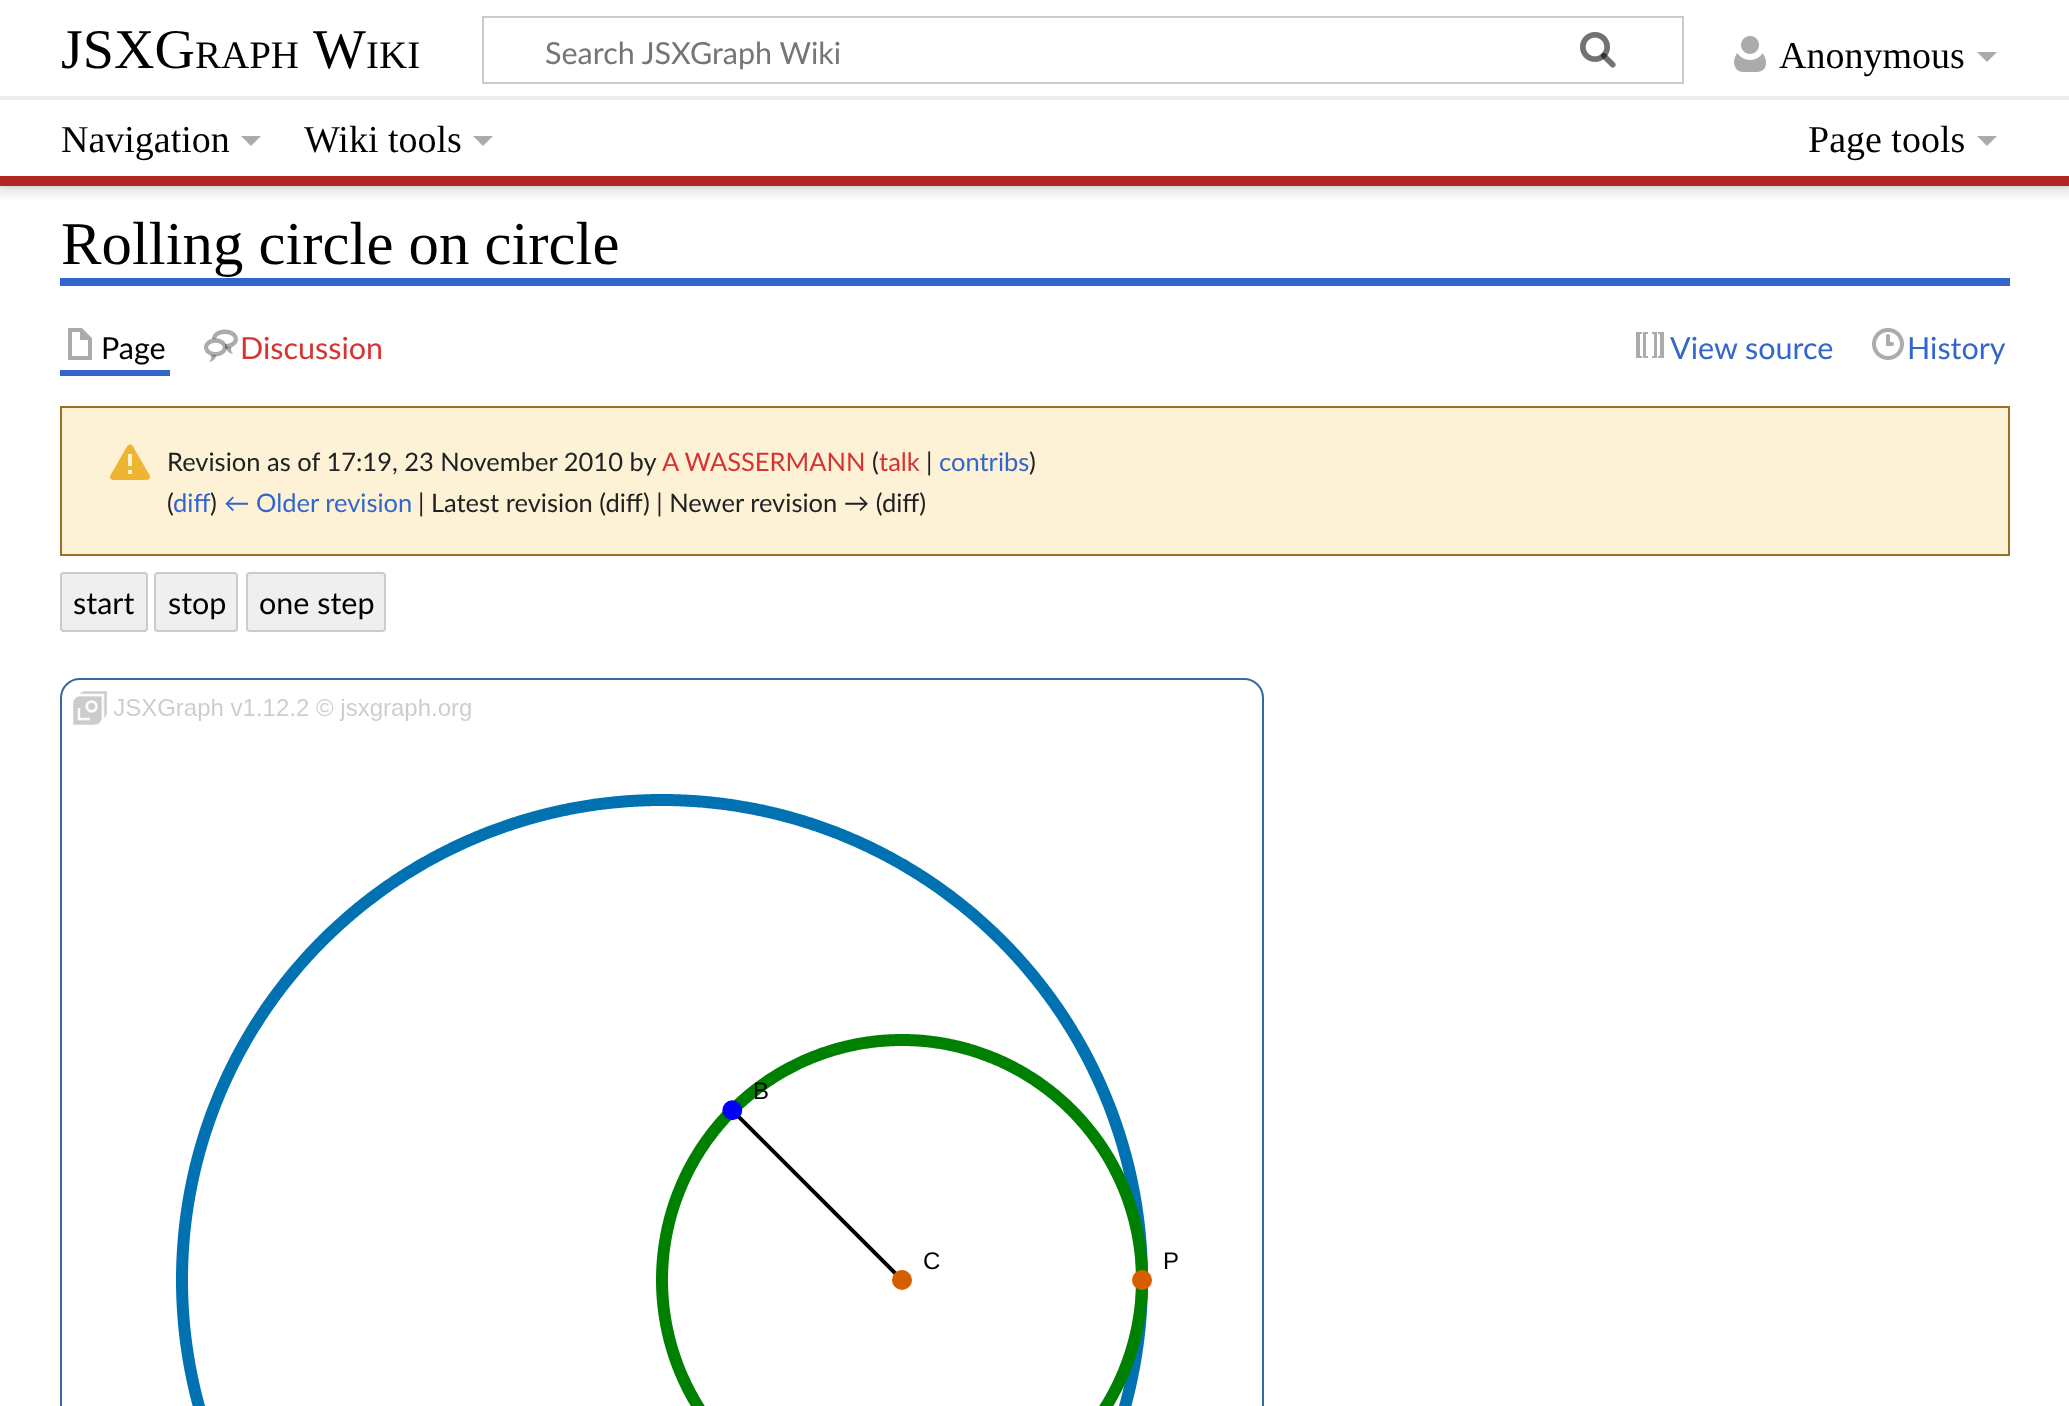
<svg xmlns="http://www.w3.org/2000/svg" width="2069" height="1406">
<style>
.a{font:56px Liberation Serif;fill:#000}
.b{font:39px Liberation Serif;fill:#000}
.c{font:30.5px Lato;fill:#757575}
.d{font:38px Liberation Serif;fill:#000}
.e{font:60.75px Liberation Serif;fill:#000}
.f{font:30.5px Lato;fill:#000}
.g{font:30.5px Lato;fill:#d73333}
.h{font:30.5px Lato;fill:#36c}
.i{font:25.5px Lato;fill:#202122}
.j{font:25.5px Lato;fill:#d73333}
.k{font:25.5px Lato;fill:#36c}
.l{font:24px Liberation Sans;fill:#000}
</style>
<rect width="100%" height="100%" fill="#fff"/>
<path fill="#00000033" filter="blur(2px)" d="M0 96h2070v90H0z"/>
<path fill="#00000012" filter="blur(3px)" d="M-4 98h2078v98H-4z"/>
<path fill="#fff" d="M0 92h2069v4H0z"/>
<path fill="none" stroke="#c8ccd1" stroke-width="2" d="M483 17h1200v66H483z"/>
<image href="1.png" x="1580" y="32" width="36" height="36"/>
<image href="2.png" x="1580" y="32" width="36" height="36"/>
<image href="3.png" x="1734" y="36" width="32" height="36"/>
<path fill="#ababab" d="M1997 52l-10 10l-10-10z"/>
<path fill="#fff" d="M0 100h2069v76H0z"/>
<path fill="#eaecf0" d="M0 96h2069v4H0z"/>
<path fill="#b32424" d="M0 176h2069v10H0z"/>
<path fill="#ababab" d="M261 136l-10 10l-10-10z"/>
<path fill="#ababab" d="M493 136l-10 10l-10-10z"/>
<path fill="#ababab" d="M1997 136l-10 10l-10-10z"/>
<path fill="#36c" d="M60 278h1950v8H60z"/>
<path fill="#36c" d="M60 370h110v6H60z"/>
<path fill="#ababab" d="M68 328v32h24v-22l-10-10zm4 4h8v8h8v16h-16z"/>
<image href="4.png" x="204" y="329" width="34" height="33"/>
<image href="5.png" x="1636" y="332" width="28" height="26"/>
<image href="6.png" x="1872" y="328" width="32" height="32"/>
<path fill="#fdf2d5" stroke="#987027" stroke-width="2" d="M61 407h1948v148H61z"/>
<image href="7.png" x="110" y="444" width="40" height="36"/>
<rect fill="#efefef" stroke="#c8ccd1" stroke-width="2" x="61" y="573" width="86" height="58" rx="3"/>
<rect fill="#efefef" stroke="#c8ccd1" stroke-width="2" x="155" y="573" width="82" height="58" rx="3"/>
<rect fill="#efefef" stroke="#c8ccd1" stroke-width="2" x="247" y="573" width="138" height="58" rx="3"/>
<rect fill="none" stroke="#356aa0" stroke-width="2" x="61" y="679" width="1202" height="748" rx="19"/>
<image href="8.png" x="73" y="691" width="1079" height="715"/>
<text class="a" x="61" y="68">JSXG</text>
<text class="b" x="195" y="68">RAPH</text>
<text class="a" x="313" y="68">W</text>
<text class="b" x="366" y="68">IKI</text>
<text class="c" x="545" y="64">Search JSXGraph Wiki</text>
<text class="d" x="1779" y="68">Anonymous</text>
<text class="d" x="61" y="152">Navigation</text>
<text class="d" x="304" y="152">Wiki tools</text>
<text class="d" x="1808" y="152">Page tools</text>
<text class="e" x="61" y="264">Rolling circle on circle</text>
<text class="f" x="101" y="359">Page</text>
<text class="g" x="240" y="359">Discussion</text>
<text class="h" x="1670" y="359">View source</text>
<text class="h" x="1907" y="359">History</text>
<text class="i" x="167" y="471">Revision as of 17:19, 23 November 2010 by</text>
<text class="j" x="662" y="471">A WASSERMANN</text>
<text class="i" x="872" y="471">(</text>
<text class="j" x="879" y="471">talk</text>
<text class="i" x="926" y="471">|</text>
<text class="k" x="939" y="471">contribs</text>
<text class="i" x="1029" y="471">)</text>
<text class="i" x="167" y="512">(</text>
<text class="k" x="173" y="512">diff</text>
<text class="i" x="210" y="512">)</text>
<text class="k" x="224" y="512">← Older revision</text>
<text class="i" x="418" y="512">| Latest revision (diff) | Newer revision → (diff)</text>
<text class="f" x="73" y="614">start</text>
<text class="f" x="168" y="614">stop</text>
<text class="f" x="259" y="614">one step</text>
<text class="l" x="753" y="1099">B</text>
<text class="l" x="923" y="1269">C</text>
<text class="l" x="1163" y="1269">P</text>
</svg>
